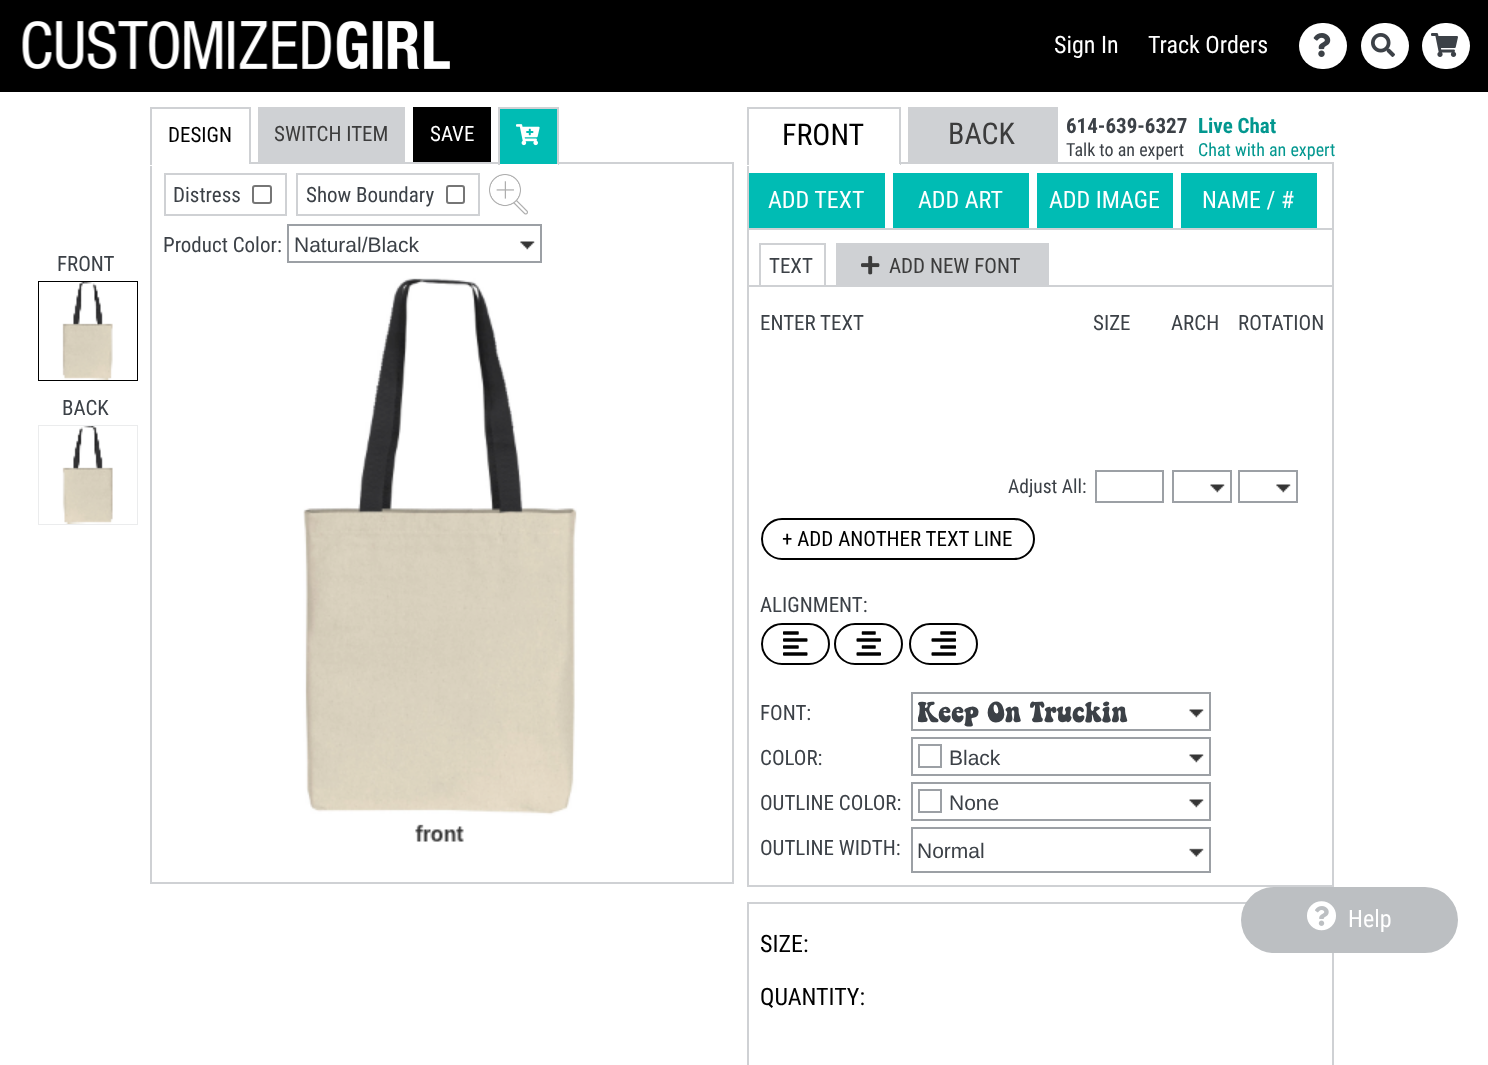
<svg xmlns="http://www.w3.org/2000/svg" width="1488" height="1065">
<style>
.a{font:24px Roboto Condensed;fill:#fff}
.b{font:21px Roboto Condensed;fill:#000}
.c{font:21px Roboto Condensed;fill:#3c3c3c}
.d{font:21px Roboto Condensed;fill:#fff}
.e{font:21px Roboto Condensed;fill:#3c4147}
.f{font:21px Liberation Sans;fill:#3c4147}
.g{font:30px Roboto Condensed;fill:#000}
.h{font:30px Roboto Condensed;fill:#3c3c3c}
.i{font:bold 21px Roboto Condensed;fill:#3c4147}
.j{font:18px Roboto Condensed;fill:#3c4147}
.k{font:bold 21px Roboto Condensed;fill:#02978f}
.l{font:18px Roboto Condensed;fill:#02978f}
.m{font:19.5px Roboto Condensed;fill:#3c4147}
.n{font:27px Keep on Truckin;fill:#3c4147}
.o{font:24px Roboto Condensed;fill:#000}
</style>
<defs>
<clipPath id="clip1"><path d="M918 695h291v33H918z"/></clipPath>
</defs>
<rect width="100%" height="100%" fill="#fff"/>
<path fill="#000" d="M0 0h1488v92H0z"/>
<image href="1.png" x="22" y="21" width="428" height="48"/>
<rect fill="#fff" x="1299" y="23" width="48" height="46" rx="23"/>
<image href="2.png" x="1313" y="33" width="18" height="24"/>
<rect fill="#fff" x="1361" y="23" width="48" height="46" rx="23"/>
<image href="3.png" x="1371" y="33" width="24" height="24"/>
<rect fill="#fff" x="1422" y="23" width="48" height="46" rx="23"/>
<image href="4.png" x="1431" y="33" width="27" height="24"/>
<path fill="none" stroke="#cfd1d4" stroke-width="2" d="M151 163h582v720H151z"/>
<path fill="#fff" d="M152 162h97v2H152z"/>
<path fill="#cfd1d4" d="M150 107h101v2H150z"/>
<path fill="#cfd1d4" d="M249 107h2v58H249z"/>
<path fill="#fff" d="M150 164h101v2H150z"/>
<path fill="#cfd1d4" d="M150 107h2v58H150z"/>
<path fill="#cfd1d4" d="M258 107h147v55H258z"/>
<path fill="#000" d="M413 107h78v55H413z"/>
<path fill="#00bcb4" d="M500 109h57v55H500z"/>
<path fill="#cfd1d4" d="M498 107h60v2H498z"/>
<path fill="#cfd1d4" d="M557 107h2v58H557z"/>
<path fill="#fff" d="M557 164h1v1H557z"/>
<path fill="#cfd1d4" d="M498 107h2v58H498z"/>
<image href="5.png" x="516" y="124" width="24" height="22"/>
<path fill="none" stroke="#cfd1d4" stroke-width="2" d="M165 174h121v41H165z"/>
<rect fill="none" stroke="#767676" stroke-width="2" x="253" y="186" width="18" height="17" rx="2"/>
<path fill="none" stroke="#cfd1d4" stroke-width="2" d="M297 174h182v41H297z"/>
<rect fill="none" stroke="#767676" stroke-width="2" x="447" y="186" width="17" height="17" rx="2"/>
<image href="6.png" x="489" y="174" width="39" height="41"/>
<image href="7.png" x="520" y="241" width="15" height="9"/>
<path fill="none" stroke="#9ca0a5" stroke-width="2" d="M288 225h253v37H288z"/>
<image href="8.png" x="303" y="278" width="274" height="564"/>
<path fill="#cfd1d4" d="M747 107h153v2H747z"/>
<path fill="#cfd1d4" d="M899 107h2v58H899z"/>
<path fill="#cfd1d4" d="M747 162h2v66H747z"/>
<path fill="#fff" d="M747 164h153v2H747z"/>
<path fill="#cfd1d4" d="M747 107h2v58H747z"/>
<path fill="#cfd1d4" d="M908 107h150v55H908z"/>
<path fill="#cfd1d4" d="M901 162h433v2H901z"/>
<path fill="#cfd1d4" d="M1332 162h2v66H1332z"/>
<path fill="#00bcb4" d="M749 173h136v55H749z"/>
<path fill="#00bcb4" d="M893 173h136v55H893z"/>
<path fill="#00bcb4" d="M1037 173h136v55H1037z"/>
<path fill="#00bcb4" d="M1181 173h136v55H1181z"/>
<path fill="none" stroke="#cfd1d4" stroke-width="2" d="M748 229h585v657H748z"/>
<path fill="#cfd1d4" d="M749 285h583v2H749z"/>
<path fill="#cfd1d4" d="M759 243h66v2H759z"/>
<path fill="#cfd1d4" d="M824 243h2v44H824z"/>
<path fill="#cfd1d4" d="M759 243h2v44H759z"/>
<path fill="#cfd1d4" d="M836 243h213v42H836z"/>
<image href="9.png" x="861" y="255" width="19" height="20"/>
<path fill="none" stroke="#9ca0a5" stroke-width="2" d="M1096 471h67v31H1096z"/>
<image href="10.png" x="1210" y="484" width="15" height="9"/>
<path fill="none" stroke="#9ca0a5" stroke-width="2" d="M1173 471h58v31H1173z"/>
<image href="7.png" x="1276" y="484" width="15" height="9"/>
<path fill="none" stroke="#9ca0a5" stroke-width="2" d="M1239 471h58v31H1239z"/>
<rect fill="none" stroke="#000" stroke-width="2" x="762" y="519" width="272" height="40" rx="20"/>
<rect fill="none" stroke="#000" stroke-width="2" x="762" y="624" width="67" height="40" rx="20"/>
<image href="11.png" x="783" y="631" width="25" height="25"/>
<rect fill="none" stroke="#000" stroke-width="2" x="835" y="624" width="67" height="40" rx="20"/>
<image href="12.png" x="856" y="631" width="25" height="25"/>
<rect fill="none" stroke="#000" stroke-width="2" x="910" y="624" width="67" height="40" rx="20"/>
<image href="13.png" x="931" y="631" width="25" height="25"/>
<image href="10.png" x="1189" y="709" width="15" height="9"/>
<path fill="none" stroke="#9ca0a5" stroke-width="2" d="M912 693h298v37H912z"/>
<image href="10.png" x="1189" y="754" width="15" height="9"/>
<path fill="none" stroke="#9ca0a5" stroke-width="2" d="M912 738h298v37H912z"/>
<path fill="none" stroke="#9ca0a5" stroke-width="2" d="M919 745h22v22H919z"/>
<image href="10.png" x="1189" y="799" width="15" height="9"/>
<path fill="none" stroke="#9ca0a5" stroke-width="2" d="M912 783h298v37H912z"/>
<path fill="none" stroke="#9ca0a5" stroke-width="2" d="M919 790h22v22H919z"/>
<image href="14.png" x="1189" y="848" width="15" height="9"/>
<path fill="none" stroke="#9ca0a5" stroke-width="2" d="M912 828h298v44H912z"/>
<path fill="none" stroke="#cfd1d4" stroke-width="2" d="M748 903h585v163H748z"/>
<path fill="none" stroke="#000" stroke-width="2" d="M39 282h98v98H39z"/>
<image href="15.png" x="39" y="282" width="98" height="98"/>
<path fill="none" stroke="#ebeced" stroke-width="2" d="M39 426h98v98H39z"/>
<image href="16.png" x="39" y="426" width="98" height="98"/>
<rect fill="#bcbfc2" x="1241" y="887" width="217" height="66" rx="33"/>
<image href="17.png" x="1307" y="901" width="29" height="30"/>
<text class="a" x="1054" y="53">Sign In</text>
<text class="a" x="1148" y="53">Track Orders</text>
<text class="b" x="168" y="142">DESIGN</text>
<text class="c" x="274" y="141">SWITCH ITEM</text>
<text class="d" x="430" y="141">SAVE</text>
<text class="e" x="173" y="202">Distress</text>
<text class="e" x="306" y="202">Show Boundary</text>
<text class="e" x="163" y="252">Product Color:</text>
<text class="f" x="294" y="252">Natural/Black</text>
<text class="g" x="782" y="145">FRONT</text>
<text class="h" x="948" y="144">BACK</text>
<text class="i" x="1066" y="133">614-639-6327</text>
<text class="j" x="1066" y="156">Talk to an expert</text>
<text class="k" x="1198" y="133">Live Chat</text>
<text class="l" x="1198" y="156">Chat with an expert</text>
<text class="a" x="768" y="208">ADD TEXT</text>
<text class="a" x="918" y="208">ADD ART</text>
<text class="a" x="1049" y="208">ADD IMAGE</text>
<text class="a" x="1202" y="208">NAME / #</text>
<text class="e" x="769" y="273">TEXT</text>
<text class="c" x="889" y="273">ADD NEW FONT</text>
<text class="e" x="760" y="330">ENTER TEXT</text>
<text class="e" x="1093" y="330">SIZE</text>
<text class="e" x="1171" y="330">ARCH</text>
<text class="e" x="1238" y="330">ROTATION</text>
<text class="m" x="1008" y="493">Adjust All:</text>
<text class="b" x="782" y="546">+ ADD ANOTHER TEXT LINE</text>
<text class="e" x="760" y="612">ALIGNMENT:</text>
<text class="e" x="760" y="720">FONT:</text>
<g clip-path="url(#clip1)">
<text class="n" x="917" y="722">Keep On Truckin</text>
</g>
<text class="e" x="760" y="765">COLOR:</text>
<text class="f" x="949" y="765">Black</text>
<text class="e" x="760" y="810">OUTLINE COLOR:</text>
<text class="f" x="949" y="810">None</text>
<text class="e" x="760" y="855">OUTLINE WIDTH:</text>
<text class="f" x="917" y="858">Normal</text>
<text class="o" x="760" y="952">SIZE:</text>
<text class="o" x="760" y="1005">QUANTITY:</text>
<text class="e" x="57" y="271">FRONT</text>
<text class="e" x="62" y="415">BACK</text>
<text class="a" x="1348" y="927">Help</text>
</svg>
